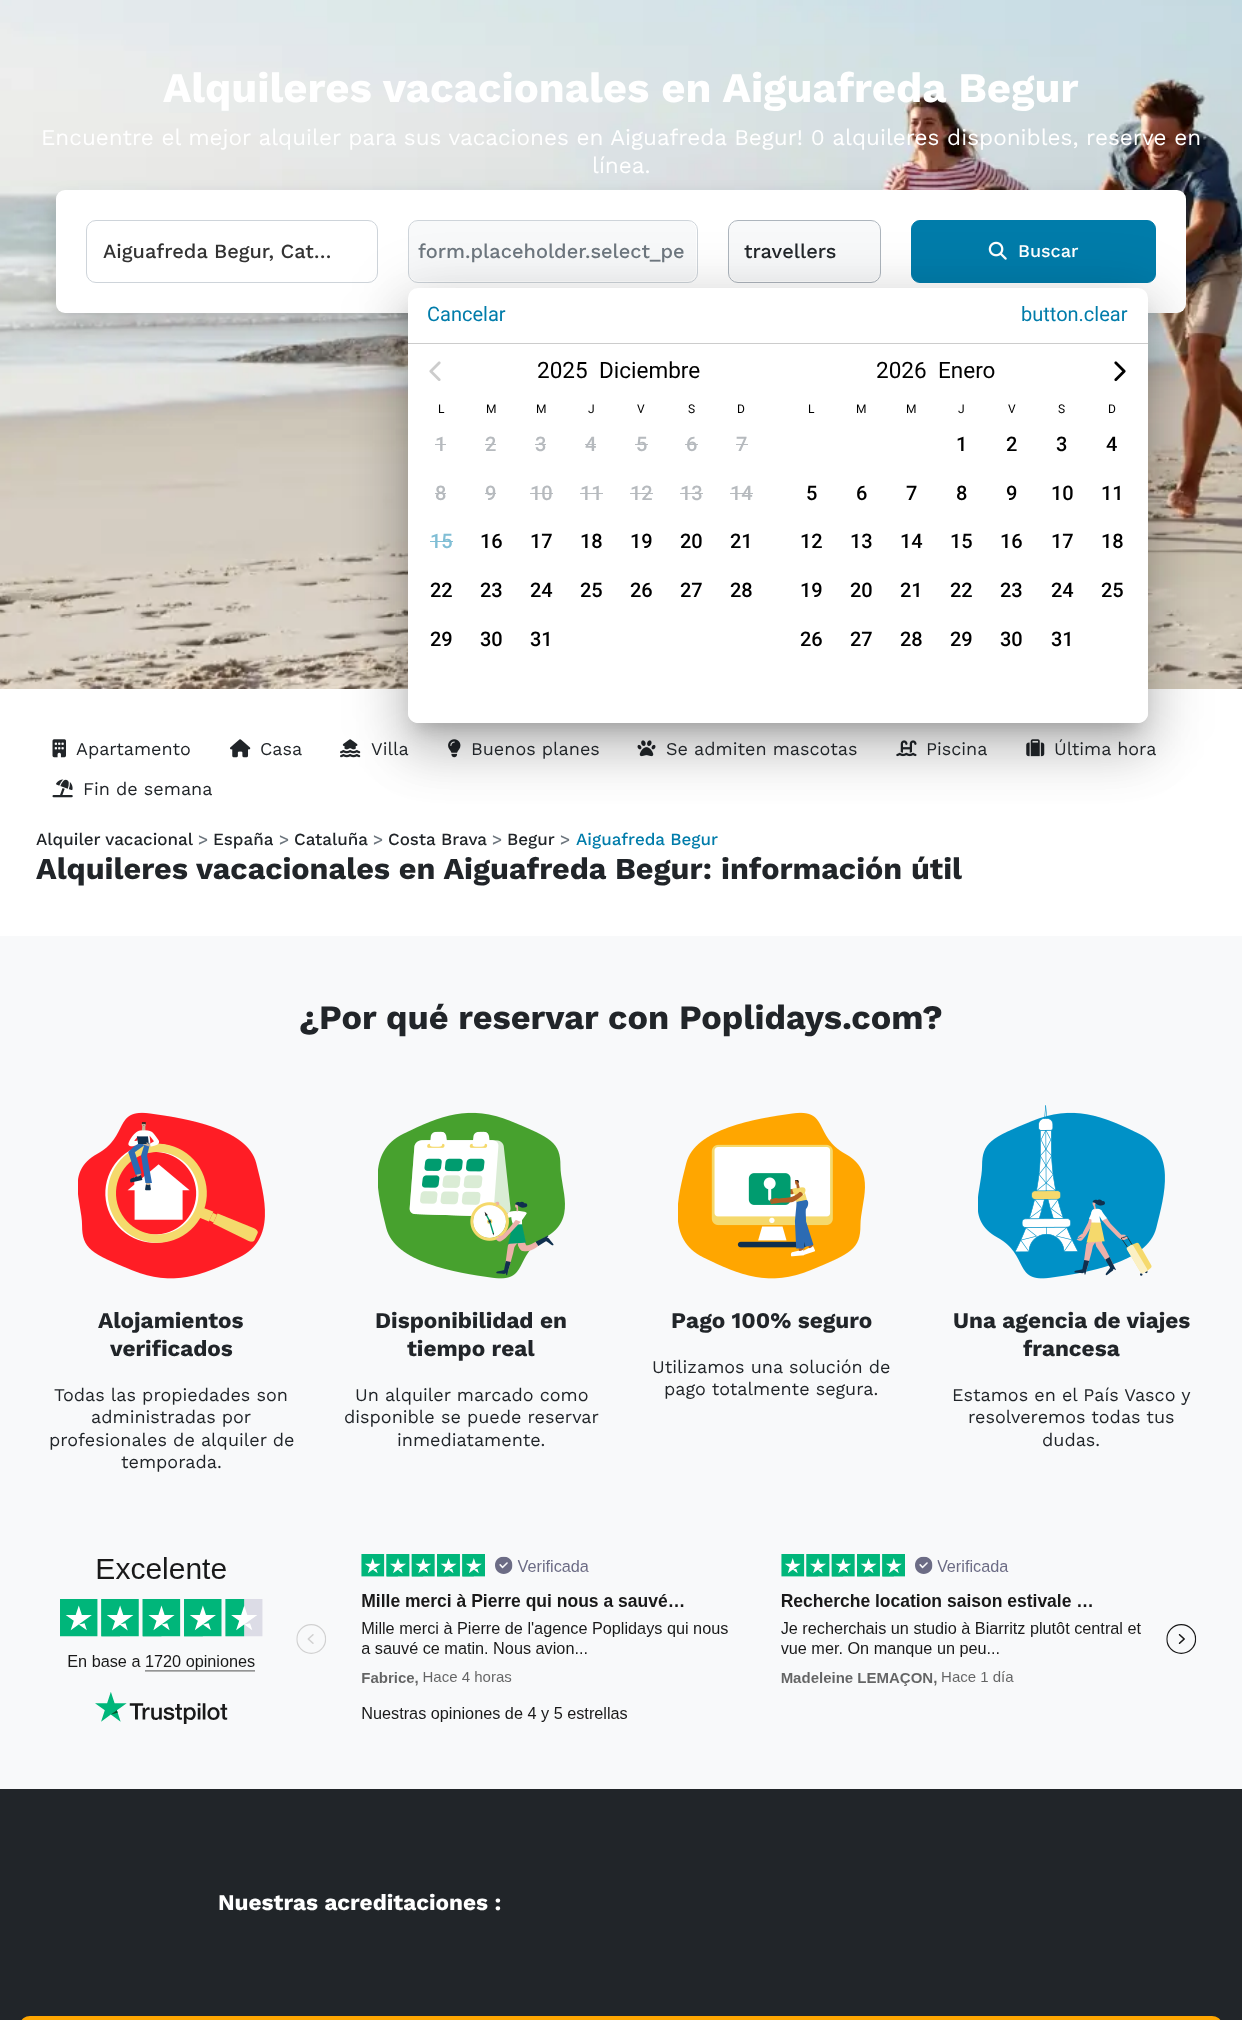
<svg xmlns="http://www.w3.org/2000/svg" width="1242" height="2020">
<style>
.a{font:bold 41.9px Work Sans;fill:#fff}
.b{font:22.5px Work Sans;fill:#fff}
.c{font:500 20px Work Sans;fill:#333}
.d{font:500 20px Work Sans;fill:#6c757d}
.e{font:500 20px Work Sans;fill:#212529}
.f{font:500 18px Work Sans;fill:#fff}
.g{font:20px Roboto;fill:#007caa}
.h{font:22.5px Roboto;fill:#000}
.i{font:12px Roboto;fill:#000}
.j{font:500 20px Roboto;fill:#b6babe}
.k{font:500 20px Roboto;fill:#80bed5}
.l{font:500 20px Roboto;fill:#000}
.m{font:18px Work Sans;fill:#212529}
.n{font:500 17px Work Sans;fill:#212529}
.o{font:500 17px Work Sans;fill:#6c757d}
.p{font:500 17px Work Sans;fill:#007caa}
.q{font:bold 30.5px Work Sans;fill:#212529}
.r{font:bold 34.25px Work Sans;fill:#212529}
.s{font:bold 22.5px Work Sans;fill:#212529}
.t{font:bold 22.5px Work Sans;fill:#fff}
</style>
<rect width="100%" height="100%" fill="#fff"/>
<image href="1.png" x="0" y="0" width="1242" height="689"/>
<rect fill="#00000026" filter="blur(10px)" x="56" y="200" width="1130" height="123" rx="9"/>
<rect fill="#fff" x="56" y="190" width="1130" height="123" rx="9"/>
<rect fill="none" stroke="#ced4da" x="86.5" y="220.5" width="291" height="62" rx="9.5"/>
<rect fill="#f8f9fa" x="409" y="221" width="287" height="60" rx="9"/>
<rect fill="none" stroke="#ced4da" x="408.5" y="220.5" width="289" height="62" rx="9.5"/>
<rect fill="#f8f9fa" x="729" y="221" width="151" height="60" rx="9"/>
<rect fill="none" stroke="#adb5bd" x="728.5" y="220.5" width="152" height="62" rx="9.5"/>
<rect fill="#007caa" stroke="#007caa" x="911.5" y="220.5" width="244" height="62" rx="8.5"/>
<image href="2.png" x="988" y="241" width="19" height="19"/>
<image href="7.png" x="340" y="739" width="21" height="19"/>
<image href="8.png" x="448" y="739" width="13" height="19"/>
<image href="9.png" x="637" y="740" width="19" height="17"/>
<image href="10.png" x="896" y="740" width="21" height="17"/>
<image href="11.png" x="1026" y="739" width="19" height="18"/>
<rect fill="#0000001f" filter="blur(29px)" x="398" y="289" width="760" height="455" rx="20"/>
<rect fill="#00000024" filter="blur(24px)" x="404" y="314" width="747" height="442" rx="14"/>
<rect fill="#00000033" filter="blur(9.5px)" x="416" y="310" width="723" height="418" rx="1"/>
<rect fill="#fff" x="408" y="288" width="740" height="435" rx="10"/>
<path fill="#ccc" d="M408 343h740v1H408z"/>
<path fill="#fff" d="M408 344h740v369c0 5.5-4.5 10-10 10h-720c-5.5 0-10-4.5-10-10z"/>
<image href="3.png" x="429" y="361" width="12" height="20"/>
<image href="4.png" x="1114" y="361" width="12" height="21"/>
<path fill="#b6babe" d="M435 444h11v1H435z"/>
<path fill="#b6babe" d="M485 444h11v1H485z"/>
<path fill="#b6babe" d="M535 444h11v1H535z"/>
<path fill="#b6babe" d="M585 444h11v1H585z"/>
<path fill="#b6babe" d="M635 444h13v1H635z"/>
<path fill="#b6babe" d="M685 444h13v1H685z"/>
<path fill="#b6babe" d="M736 444h12v1H736z"/>
<path fill="#b6babe" d="M435 493h11v1H435z"/>
<path fill="#b6babe" d="M485 493h11v1H485z"/>
<path fill="#b6babe" d="M530 493h23v1H530z"/>
<path fill="#b6babe" d="M580 493h23v1H580z"/>
<path fill="#b6babe" d="M630 493h23v1H630z"/>
<path fill="#b6babe" d="M680 493h23v1H680z"/>
<path fill="#b6babe" d="M730 493h23v1H730z"/>
<path fill="#80bed5" d="M430 541h23v1H430z"/>
<image href="5.png" x="52" y="739" width="14" height="19"/>
<image href="6.png" x="230" y="739" width="21" height="19"/>
<image href="12.png" x="52" y="779" width="21" height="19"/>
<path fill="#f8f9fa" d="M0 936h1242v853H0z"/>
<image href="13.png" x="78" y="1112" width="187" height="167"/>
<image href="14.png" x="378" y="1112" width="187" height="167"/>
<image href="15.png" x="678" y="1112" width="187" height="167"/>
<image href="16.png" x="978" y="1105" width="187" height="174"/>
<image href="17.png" x="60" y="1554" width="1137" height="170"/>
<path fill="#212529" d="M0 1789h1242v231H0z"/>
<rect fill="#ffa600" x="21" y="2016" width="1200" height="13" rx="9"/>
<text class="a" x="163" y="102">Alquileres vacacionales en Aiguafreda Begur</text>
<text class="b" x="41" y="145">Encuentre el mejor alquiler para sus vacaciones en Aiguafreda Begur! 0 alquileres disponibles, reserve en</text>
<text class="b" x="592" y="173">línea.</text>
<text class="c" x="103" y="258">Aiguafreda Begur, Cat…</text>
<text class="d" x="418" y="258">form.placeholder.select_pe</text>
<text class="e" x="744" y="258">travellers</text>
<text class="f" x="1018" y="257">Buscar</text>
<text class="g" x="427" y="321">Cancelar</text>
<text class="g" x="1021" y="321">button.clear</text>
<text class="h" x="537" y="378">2025</text>
<text class="h" x="599" y="378">Diciembre</text>
<text class="h" x="876" y="378">2026</text>
<text class="h" x="938" y="378">Enero</text>
<text class="i" x="438" y="413">L</text>
<text class="i" x="486" y="413">M</text>
<text class="i" x="536" y="413">M</text>
<text class="i" x="588" y="413">J</text>
<text class="i" x="637" y="413">V</text>
<text class="i" x="688" y="413">S</text>
<text class="i" x="737" y="413">D</text>
<text class="j" x="435" y="451">1</text>
<text class="j" x="485" y="451">2</text>
<text class="j" x="535" y="451">3</text>
<text class="j" x="585" y="451">4</text>
<text class="j" x="636" y="451">5</text>
<text class="j" x="686" y="451">6</text>
<text class="j" x="736" y="451">7</text>
<text class="j" x="435" y="500">8</text>
<text class="j" x="485" y="500">9</text>
<text class="j" x="530" y="500">10</text>
<text class="j" x="580" y="500">11</text>
<text class="j" x="630" y="500">12</text>
<text class="j" x="680" y="500">13</text>
<text class="j" x="730" y="500">14</text>
<text class="k" x="430" y="548">15</text>
<text class="l" x="480" y="548">16</text>
<text class="l" x="530" y="548">17</text>
<text class="l" x="580" y="548">18</text>
<text class="l" x="630" y="548">19</text>
<text class="l" x="680" y="548">20</text>
<text class="l" x="730" y="548">21</text>
<text class="l" x="430" y="597">22</text>
<text class="l" x="480" y="597">23</text>
<text class="l" x="530" y="597">24</text>
<text class="l" x="580" y="597">25</text>
<text class="l" x="630" y="597">26</text>
<text class="l" x="680" y="597">27</text>
<text class="l" x="730" y="597">28</text>
<text class="l" x="430" y="646">29</text>
<text class="l" x="480" y="646">30</text>
<text class="l" x="530" y="646">31</text>
<text class="i" x="808" y="413">L</text>
<text class="i" x="856" y="413">M</text>
<text class="i" x="906" y="413">M</text>
<text class="i" x="958" y="413">J</text>
<text class="i" x="1008" y="413">V</text>
<text class="i" x="1058" y="413">S</text>
<text class="i" x="1108" y="413">D</text>
<text class="l" x="956" y="451">1</text>
<text class="l" x="1006" y="451">2</text>
<text class="l" x="1056" y="451">3</text>
<text class="l" x="1106" y="451">4</text>
<text class="l" x="806" y="500">5</text>
<text class="l" x="856" y="500">6</text>
<text class="l" x="906" y="500">7</text>
<text class="l" x="956" y="500">8</text>
<text class="l" x="1006" y="500">9</text>
<text class="l" x="1051" y="500">10</text>
<text class="l" x="1101" y="500">11</text>
<text class="l" x="800" y="548">12</text>
<text class="l" x="850" y="548">13</text>
<text class="l" x="900" y="548">14</text>
<text class="l" x="950" y="548">15</text>
<text class="l" x="1000" y="548">16</text>
<text class="l" x="1051" y="548">17</text>
<text class="l" x="1101" y="548">18</text>
<text class="l" x="800" y="597">19</text>
<text class="l" x="850" y="597">20</text>
<text class="l" x="900" y="597">21</text>
<text class="l" x="950" y="597">22</text>
<text class="l" x="1000" y="597">23</text>
<text class="l" x="1051" y="597">24</text>
<text class="l" x="1101" y="597">25</text>
<text class="l" x="800" y="646">26</text>
<text class="l" x="850" y="646">27</text>
<text class="l" x="900" y="646">28</text>
<text class="l" x="950" y="646">29</text>
<text class="l" x="1000" y="646">30</text>
<text class="l" x="1051" y="646">31</text>
<text class="m" x="76" y="755">Apartamento</text>
<text class="m" x="260" y="755">Casa</text>
<text class="m" x="371" y="755">Villa</text>
<text class="m" x="471" y="755">Buenos planes</text>
<text class="m" x="666" y="755">Se admiten mascotas</text>
<text class="m" x="926" y="755">Piscina</text>
<text class="m" x="1054" y="755">Última hora</text>
<text class="m" x="83" y="795">Fin de semana</text>
<text class="n" x="36" y="845">Alquiler vacacional</text>
<text class="o" x="198" y="845">&gt;</text>
<text class="n" x="213" y="845">España</text>
<text class="o" x="279" y="845">&gt;</text>
<text class="n" x="294" y="845">Cataluña</text>
<text class="o" x="373" y="845">&gt;</text>
<text class="n" x="388" y="845">Costa Brava</text>
<text class="o" x="492" y="845">&gt;</text>
<text class="n" x="507" y="845">Begur</text>
<text class="o" x="560" y="845">&gt;</text>
<text class="p" x="576" y="845">Aiguafreda Begur</text>
<text class="q" x="36" y="879">Alquileres vacacionales en Aiguafreda Begur: información útil</text>
<text class="r" x="299" y="1029">¿Por qué reservar con Poplidays.com?</text>
<text class="s" x="98" y="1328">Alojamientos</text>
<text class="s" x="110" y="1356">verificados</text>
<text class="m" x="54" y="1401">Todas las propiedades son</text>
<text class="m" x="91" y="1423">administradas por</text>
<text class="m" x="49" y="1446">profesionales de alquiler de</text>
<text class="m" x="121" y="1468">temporada.</text>
<text class="s" x="375" y="1328">Disponibilidad en</text>
<text class="s" x="407" y="1356">tiempo real</text>
<text class="m" x="355" y="1401">Un alquiler marcado como</text>
<text class="m" x="344" y="1423">disponible se puede reservar</text>
<text class="m" x="397" y="1446">inmediatamente.</text>
<text class="s" x="671" y="1328">Pago 100% seguro</text>
<text class="m" x="652" y="1373">Utilizamos una solución de</text>
<text class="m" x="664" y="1395">pago totalmente segura.</text>
<text class="s" x="953" y="1328">Una agencia de viajes</text>
<text class="s" x="1023" y="1356">francesa</text>
<text class="m" x="952" y="1401">Estamos en el País Vasco y</text>
<text class="m" x="968" y="1423">resolveremos todas tus</text>
<text class="m" x="1042" y="1446">dudas.</text>
<text class="t" x="218" y="1910">Nuestras acreditaciones :</text>
</svg>
